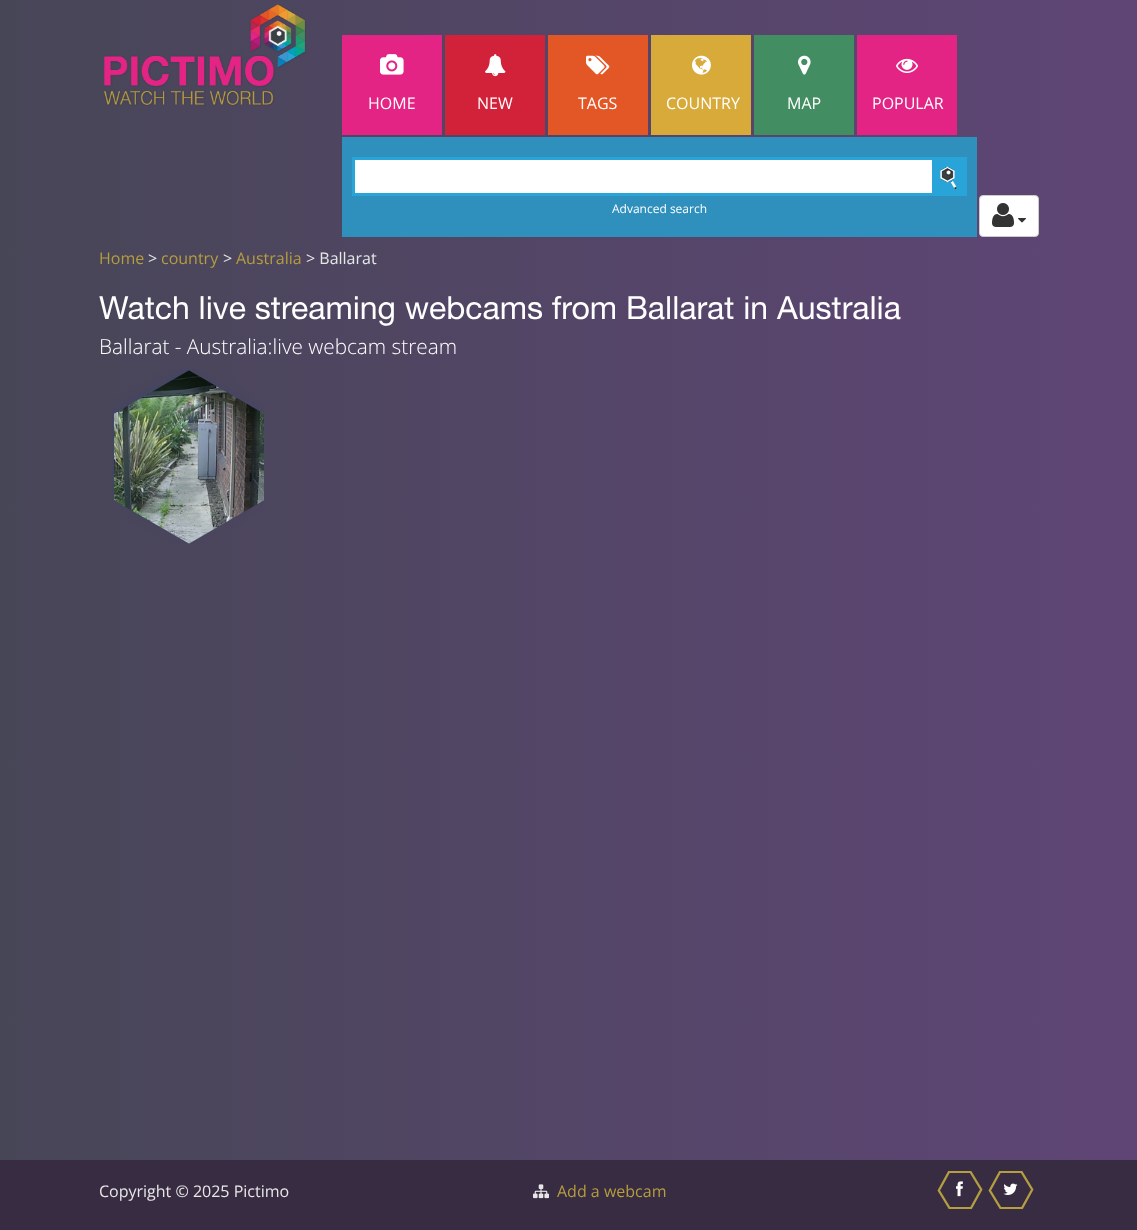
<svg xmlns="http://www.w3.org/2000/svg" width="1137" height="1230">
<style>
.a{font:16px Open Sans;fill:#fff}
.b{font:12px Open Sans;fill:#fff}
.c{font:16px Open Sans;fill:#b69d3e}
.d{font:16px Open Sans;fill:#e7e7e7}
.e{font:32px Helvetica Neue;fill:#fff}
.f{font:300 20.75px Open Sans;fill:#fff}
</style>
<defs>
<linearGradient id="g1" gradientUnits="userSpaceOnUse" x1="0" y1="348" x2="1137" y2="348"><stop offset="0" stop-color="#474657"/><stop offset="1" stop-color="#5f4576"/></linearGradient>
</defs>
<rect width="100%" height="100%" fill="#fff"/>
<path fill="url(#g1)" d="M0 0h1137v1160H0z"/>
<image href="1.png" x="104" y="4" width="202" height="102"/>
<path fill="#e32484" d="M342 35h100v100H342z"/>
<image href="2.png" x="380" y="54" width="24" height="21"/>
<path fill="#d2223a" d="M445 35h100v100H445z"/>
<image href="3.png" x="485" y="54" width="21" height="23"/>
<path fill="#e35626" d="M548 35h100v100H548z"/>
<image href="4.png" x="586" y="55" width="24" height="20"/>
<path fill="#d8aa3a" d="M651 35h100v100H651z"/>
<image href="5.png" x="692" y="55" width="19" height="20"/>
<path fill="#428e62" d="M754 35h100v100H754z"/>
<image href="6.png" x="798" y="55" width="13" height="20"/>
<path fill="#e32484" d="M857 35h100v100H857z"/>
<image href="7.png" x="896" y="58" width="22" height="15"/>
<path fill="#2f90be" d="M342 137h635v100H342z"/>
<path fill="#fff" d="M355 160h577v33H355z"/>
<path fill="none" stroke="#29a4d8" stroke-width="3" d="M353.5 158.5h612v36H353.5z"/>
<path fill="#29a4d8" d="M932 160h32v33H932z"/>
<image href="8.png" x="940" y="166" width="18" height="24"/>
<rect fill="#fff" stroke="#ccc" x="979.5" y="195.5" width="59" height="41" rx="3.5"/>
<image href="9.png" x="992" y="203" width="22" height="24"/>
<image href="10.png" x="1018" y="218" width="8" height="5"/>
<image href="11.png" x="112" y="369" width="152" height="175"/>
<path fill="#382c42" d="M0 1160h1137v70H0z"/>
<image href="12.png" x="533" y="1184" width="16" height="15"/>
<image href="13.png" x="937" y="1171" width="46" height="38"/>
<image href="14.png" x="956" y="1181" width="7" height="16"/>
<image href="13.png" x="988" y="1171" width="46" height="38"/>
<image href="15.png" x="1003" y="1183" width="15" height="12"/>
<text class="a" x="368" y="109">HOME</text>
<text class="a" x="477" y="109">NEW</text>
<text class="a" x="578" y="109">TAGS</text>
<text class="a" x="666" y="109">COUNTRY</text>
<text class="a" x="787" y="109">MAP</text>
<text class="a" x="872" y="109">POPULAR</text>
<text class="b" x="612" y="213">Advanced search</text>
<text class="c" x="99" y="264">Home</text>
<text class="d" x="148" y="264">&gt;</text>
<text class="c" x="161" y="264">country</text>
<text class="d" x="223" y="264">&gt;</text>
<text class="c" x="236" y="264">Australia</text>
<text class="d" x="306" y="264">&gt; Ballarat</text>
<text class="e" x="99" y="319">Watch live streaming webcams from Ballarat in Australia</text>
<text class="f" x="99" y="354">Ballarat - Australia:live webcam stream</text>
<text class="d" x="99" y="1197">Copyright © 2025 Pictimo</text>
<text class="c" x="557" y="1197">Add a webcam</text>
</svg>
